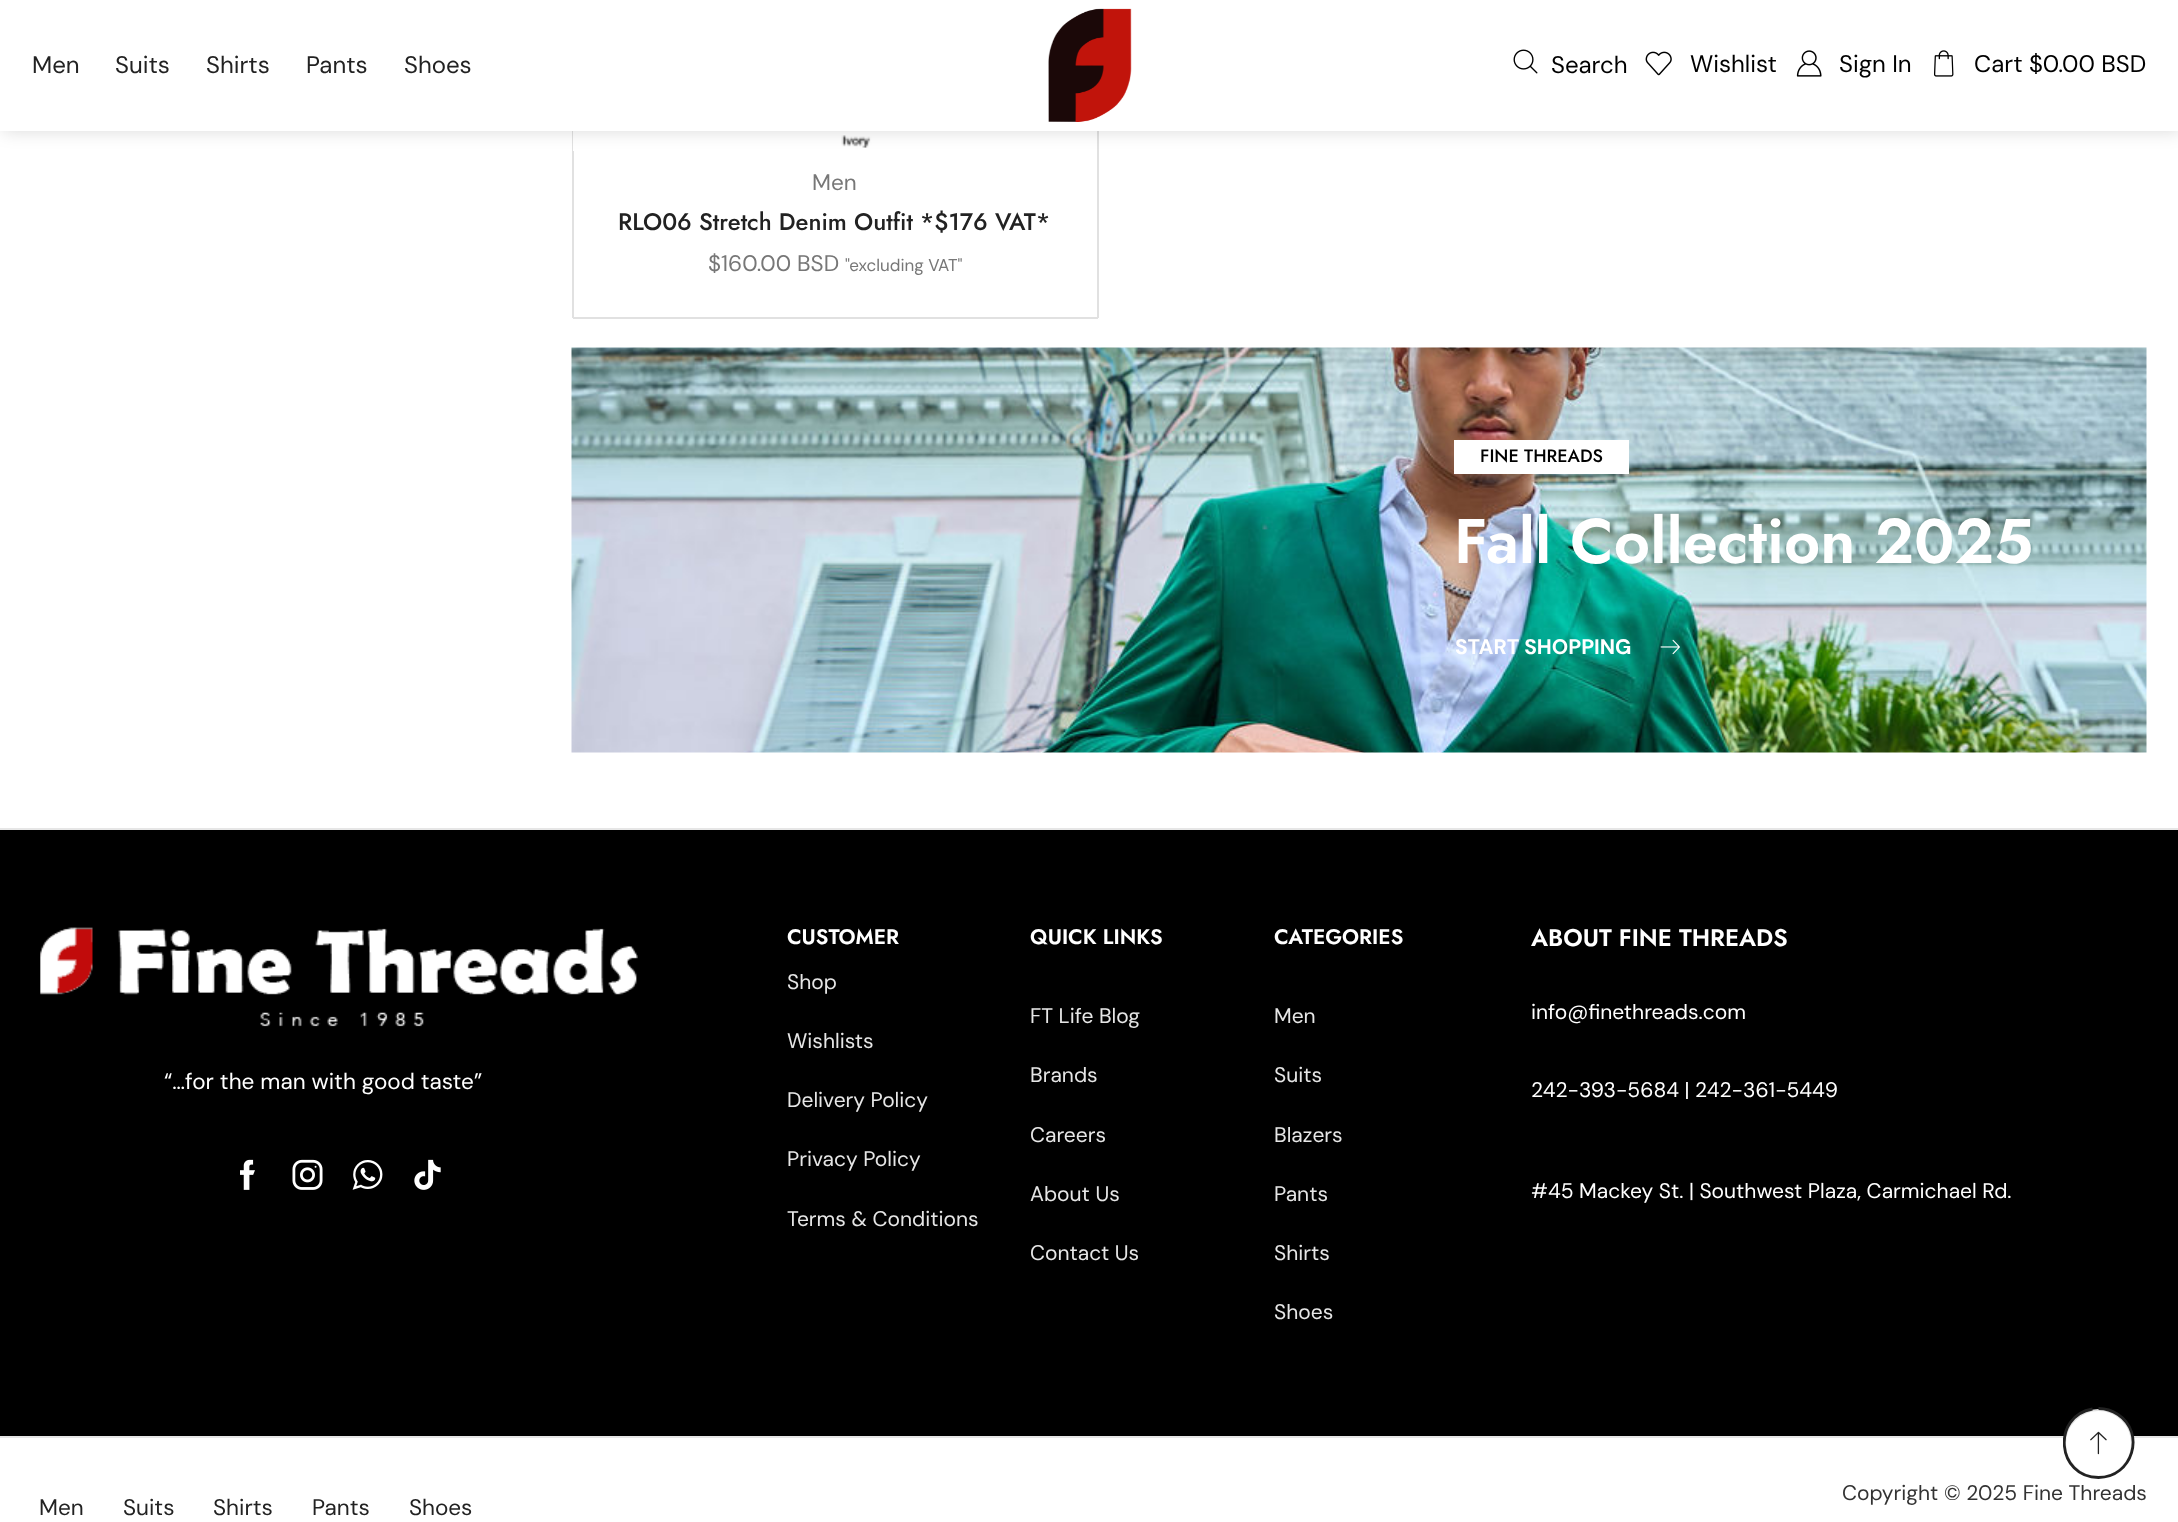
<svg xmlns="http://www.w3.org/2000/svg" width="2178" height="1522">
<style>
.a{font:24px DM Sans;fill:#222}
.b{font:24px DM Sans;fill:#000}
.c{font:22.5px DM Sans;fill:#777}
.d{font:500 23.9px Jost;fill:#222}
.e{font:17px DM Sans;fill:#777}
.f{font:500 18px Jost;fill:#000}
.g{font:600 63px Jost;fill:#fff}
.h{font:bold 21px DM Sans;fill:#fff}
.i{font:22.5px DM Sans;fill:#fff}
.j{font:600 21px Jost;fill:#fff}
.k{font:21px DM Sans;fill:#e6e6e6}
.l{font:600 24px Jost;fill:#fff}
.m{font:21px DM Sans;fill:#fff}
.n{font:21px DM Sans;fill:#333}
.o{font:22.5px DM Sans;fill:#222}
</style>
<defs>
<clipPath id="clip1"><path d="M2063 1407h72v72H2063z"/></clipPath>
</defs>
<rect width="100%" height="100%" fill="#fff"/>
<path fill="#e1e1e1" d="M572 131h2v187H572z"/>
<path fill="#e1e1e1" d="M1097 131h2v187H1097z"/>
<image href="6.png" x="573" y="131" width="524" height="20"/>
<path fill="#00000026" filter="blur(9px)" d="M3 0h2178v131H3z"/>
<path fill="#fff" d="M0 0h2178v131H0z"/>
<image href="1.png" x="1048" y="8" width="84" height="114"/>
<image href="2.png" x="1513" y="49" width="25" height="25"/>
<image href="3.png" x="1645" y="51" width="27" height="25"/>
<image href="4.png" x="1796" y="50" width="26" height="27"/>
<image href="5.png" x="1934" y="50" width="20" height="27"/>
<path fill="#e1e1e1" d="M573 317h525v2H573z"/>
<image href="7.png" x="571" y="347" width="1576" height="406"/>
<path fill="#fff" d="M1454 440h175v34H1454z"/>
<image href="8.png" x="1660" y="639" width="20" height="16"/>
<path fill="#000" d="M0 830h2178v606H0z"/>
<path fill="#e6e6e6" d="M0 1436h2178v2H0z"/>
<circle fill="#fff" stroke="#e1e1e1" stroke-width="2" cx="2098.5" cy="1443.5" r="33.5"/>
<g clip-path="url(#clip1)">
<path fill="none" stroke="#222" stroke-width="2.8" d="M2098.5 1408.5c7 0 13.5 2 19.5 6c28 18.5 14.5 63-19.5 63c-42 0-47-61.5-6-68.5"/>
</g>
<image href="9.png" x="2090" y="1431" width="17" height="24"/>
<path fill="#e6e6e6" d="M0 828h2178v2H0z"/>
<image href="10.png" x="40" y="927" width="598" height="100"/>
<image href="11.png" x="240" y="1159" width="15" height="31"/>
<image href="12.png" x="292" y="1159" width="31" height="31"/>
<image href="13.png" x="352" y="1160" width="31" height="30"/>
<image href="14.png" x="414" y="1159" width="27" height="31"/>
<text class="a" x="32" y="73">Men</text>
<text class="a" x="115" y="73">Suits</text>
<text class="a" x="206" y="73">Shirts</text>
<text class="a" x="306" y="73">Pants</text>
<text class="a" x="404" y="73">Shoes</text>
<text class="b" x="1551" y="73">Search</text>
<text class="b" x="1690" y="72">Wishlist</text>
<text class="b" x="1839" y="72">Sign In</text>
<text class="b" x="1974" y="72">Cart $0.00 BSD</text>
<text class="c" x="812" y="190">Men</text>
<text class="d" x="618" y="230">RLO06 Stretch Denim Outfit *$176 VAT*</text>
<text class="c" x="708" y="271">$160.00 BSD</text>
<text class="e" x="845" y="271">"excluding VAT"</text>
<text class="f" x="1480" y="462">FINE THREADS</text>
<text class="g" x="1454" y="563">Fall</text>
<text class="g" x="1570" y="563">Collection 2025</text>
<text class="h" x="1455" y="654">START SHOPPING</text>
<text class="i" x="164" y="1089">“…for the man with good taste”</text>
<text class="j" x="787" y="944">CUSTOMER</text>
<text class="k" x="787" y="989">Shop</text>
<text class="k" x="787" y="1048">Wishlists</text>
<text class="k" x="787" y="1107">Delivery Policy</text>
<text class="k" x="787" y="1166">Privacy Policy</text>
<text class="k" x="787" y="1226">Terms &amp; Conditions</text>
<text class="j" x="1030" y="944">QUICK LINKS</text>
<text class="k" x="1030" y="1023">FT Life Blog</text>
<text class="k" x="1030" y="1082">Brands</text>
<text class="k" x="1030" y="1142">Careers</text>
<text class="k" x="1030" y="1201">About Us</text>
<text class="k" x="1030" y="1260">Contact Us</text>
<text class="j" x="1274" y="944">CATEGORIES</text>
<text class="k" x="1274" y="1023">Men</text>
<text class="k" x="1274" y="1082">Suits</text>
<text class="k" x="1274" y="1142">Blazers</text>
<text class="k" x="1274" y="1201">Pants</text>
<text class="k" x="1274" y="1260">Shirts</text>
<text class="k" x="1274" y="1319">Shoes</text>
<text class="l" x="1531" y="946">ABOUT FINE THREADS</text>
<text class="m" x="1531" y="1019">info@finethreads.com</text>
<text class="m" x="1531" y="1097">242-393-5684 | 242-361-5449</text>
<text class="m" x="1531" y="1198">#45 Mackey St. | Southwest Plaza, Carmichael Rd.</text>
<text class="n" x="1842" y="1500">Copyright © 2025 Fine Threads</text>
<text class="o" x="39" y="1515">Men</text>
<text class="o" x="123" y="1515">Suits</text>
<text class="o" x="213" y="1515">Shirts</text>
<text class="o" x="312" y="1515">Pants</text>
<text class="o" x="409" y="1515">Shoes</text>
</svg>
